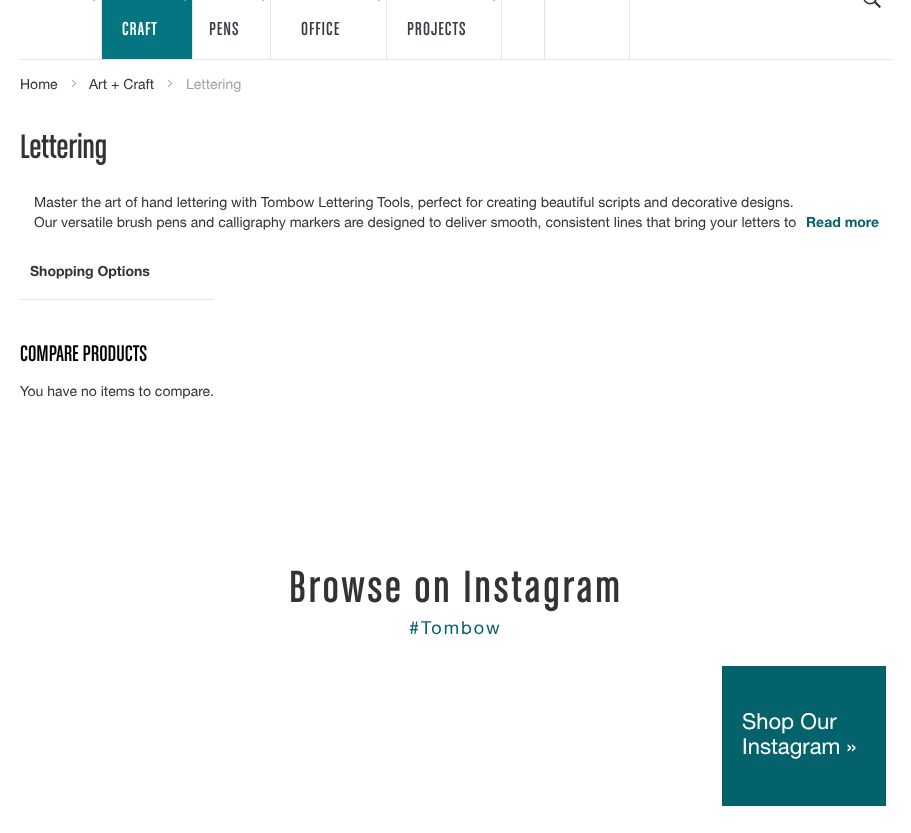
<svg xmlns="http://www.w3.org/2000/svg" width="911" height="833">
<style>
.a{font:20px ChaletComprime;letter-spacing:1px;fill:#fff}
.b{font:20px ChaletComprime;letter-spacing:1px;fill:#383e46}
.c{font:14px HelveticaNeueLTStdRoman;fill:#333}
.d{font:14px HelveticaNeueLTStdRoman;fill:#a3a3a3}
.e{font:36px ChaletComprime;fill:#333}
.f{font:bold 14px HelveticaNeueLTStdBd;fill:#04626c}
.g{font:bold 14px HelveticaNeueLTStdBd;fill:#333}
.h{font:24px ChaletComprime;fill:#000}
.i{font:48px ChaletComprime;letter-spacing:3px;fill:#333}
.j{font:18px HelveticaNeueLTStdRoman;letter-spacing:2px;fill:#04626c}
.k{font:22px HelveticaNeueLTStdRoman;fill:#fff}
</style>
<rect width="100%" height="100%" fill="#fff"/>
<image href="1.png" x="863" y="0" width="18" height="8"/>
<path fill="#e2e3e4" d="M20 59h871v1H20z"/>
<path fill="#e2e3e4" d="M101 0h1v59H101z"/>
<image href="2.png" x="93" y="0" width="2" height="1"/>
<path fill="#e2e3e4" d="M192 0h1v59H192z"/>
<path fill="#057581" d="M102 0h90v59H102z"/>
<image href="3.png" x="184" y="0" width="2" height="1"/>
<path fill="#e2e3e4" d="M270 0h1v59H270z"/>
<image href="2.png" x="262" y="0" width="2" height="1"/>
<path fill="#e2e3e4" d="M386 0h1v59H386z"/>
<image href="2.png" x="378" y="0" width="2" height="1"/>
<path fill="#e2e3e4" d="M501 0h1v59H501z"/>
<image href="2.png" x="493" y="0" width="2" height="1"/>
<path fill="#e2e3e4" d="M544 0h1v59H544z"/>
<path fill="#e2e3e4" d="M629 0h1v59H629z"/>
<image href="4.png" x="71" y="79" width="6" height="9"/>
<image href="4.png" x="167" y="79" width="6" height="9"/>
<path fill="#e2e3e4" d="M20 299h194v1H20z"/>
<path fill="#04626c" d="M722 666h164v140H722z"/>
<text class="a" x="122" y="35">CRAFT</text>
<text class="b" x="209" y="35">PENS</text>
<text class="b" x="301" y="35">OFFICE</text>
<text class="b" x="407" y="35">PROJECTS</text>
<text class="c" x="20" y="89">Home</text>
<text class="c" x="89" y="89">Art + Craft</text>
<text class="d" x="186" y="89">Lettering</text>
<text class="e" x="20" y="158">Lettering</text>
<text class="c" x="34" y="207">Master the art of hand lettering with Tombow Lettering Tools, perfect for creating beautiful scripts and decorative designs.</text>
<text class="c" x="34" y="227">Our versatile brush pens and calligraphy markers are designed to deliver smooth, consistent lines that bring your letters to</text>
<text class="f" x="806" y="227">Read more</text>
<text class="g" x="30" y="276">Shopping Options</text>
<text class="h" x="20" y="361">COMPARE PRODUCTS</text>
<text class="c" x="20" y="396">You have no items to compare.</text>
<text class="i" x="289" y="602">Browse on Instagram</text>
<text class="j" x="409" y="634">#Tombow</text>
<text class="k" x="742" y="729">Shop Our</text>
<text class="k" x="742" y="754">Instagram »</text>
</svg>
